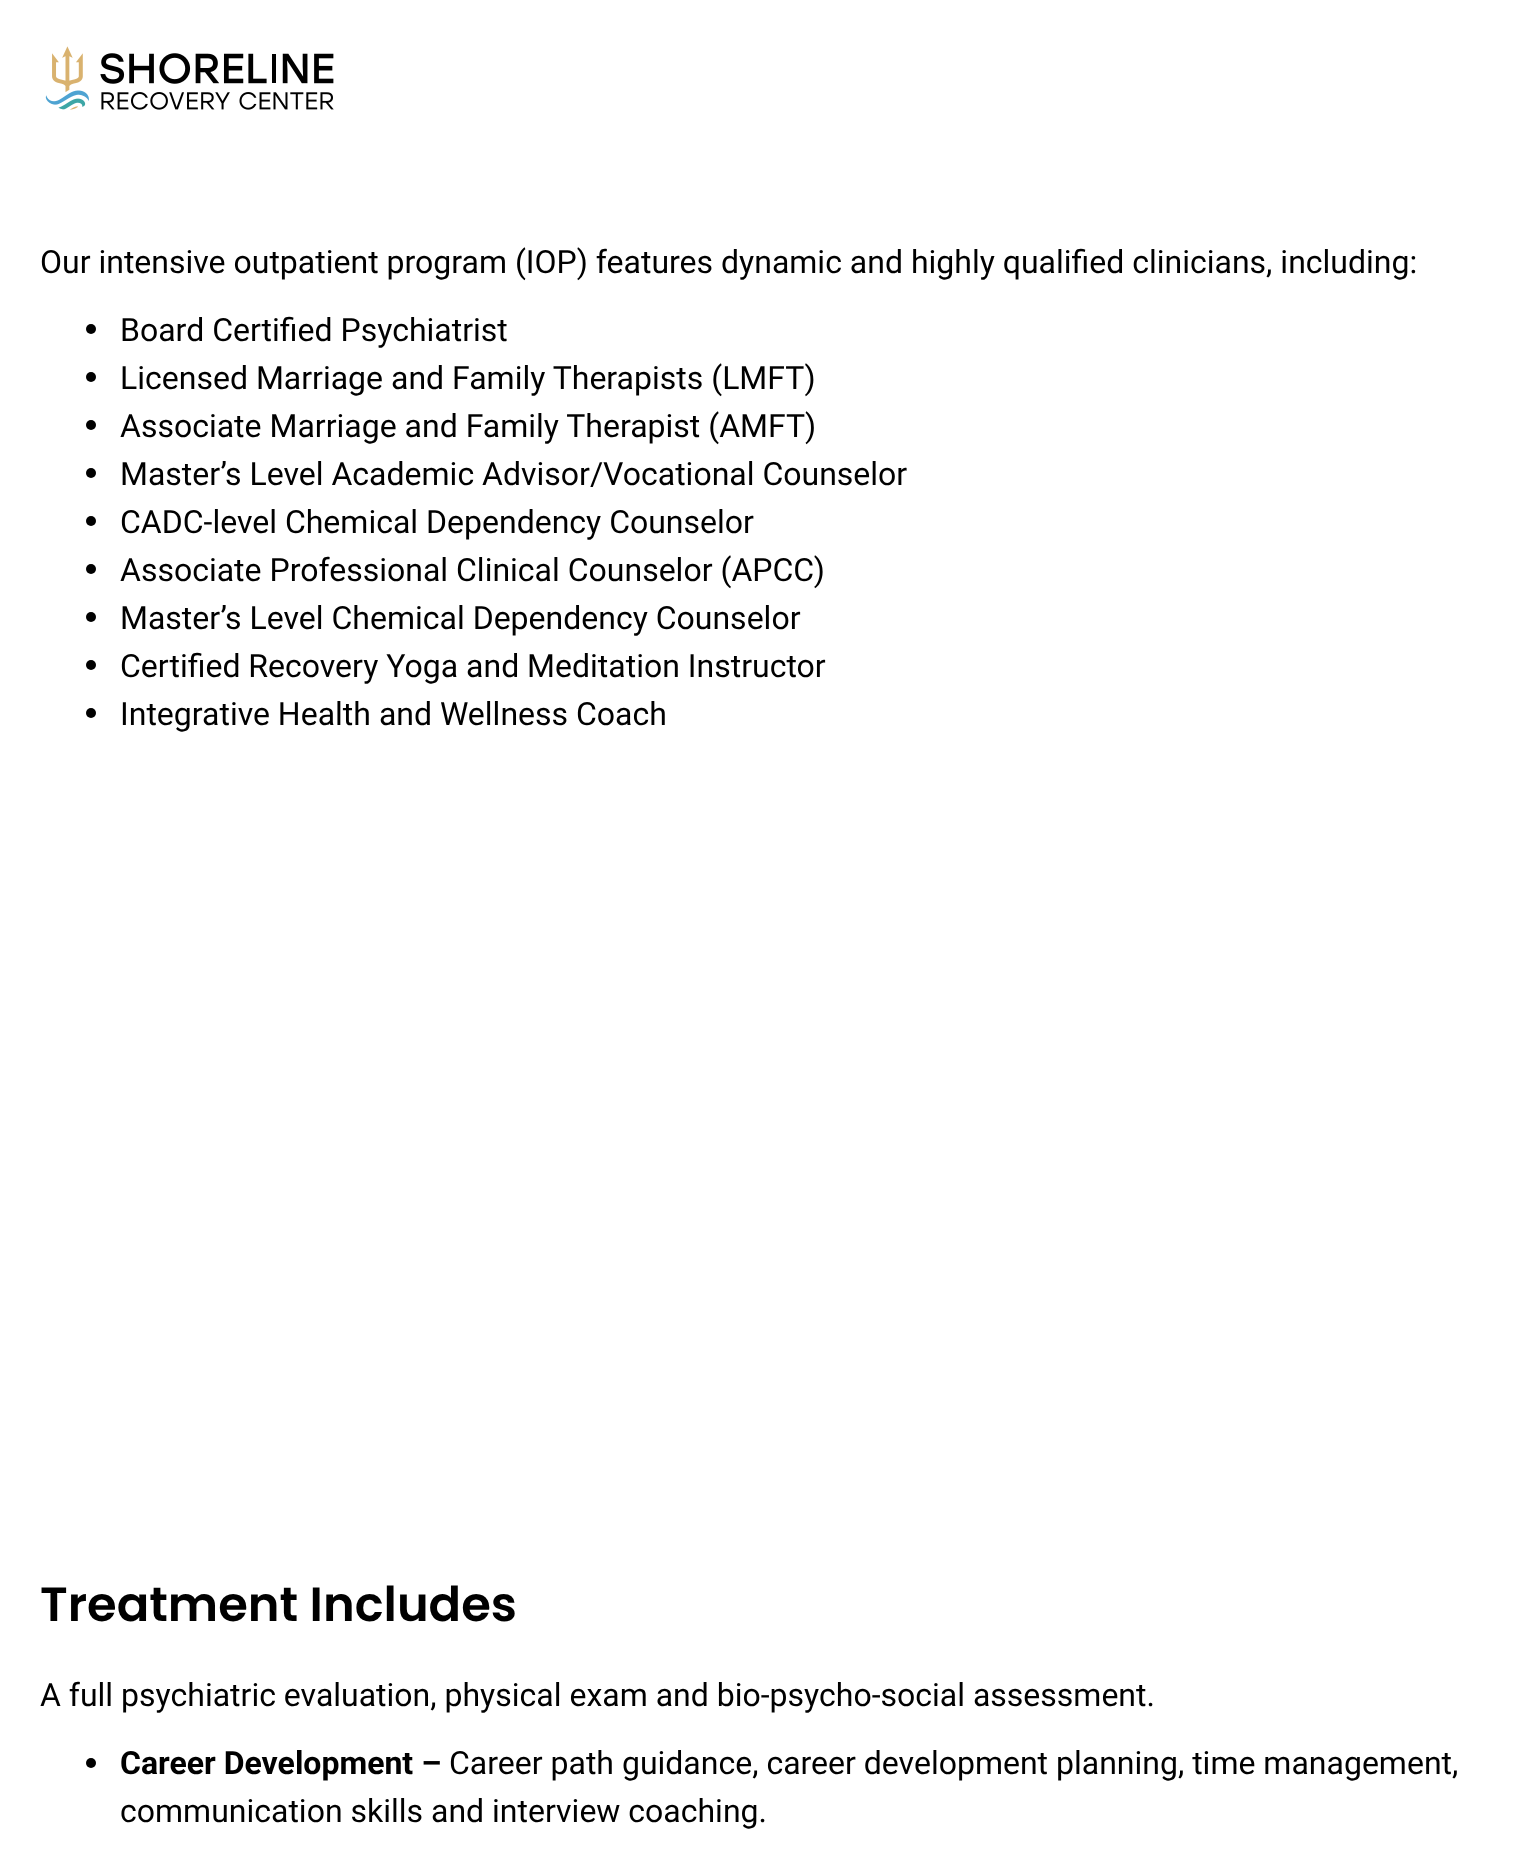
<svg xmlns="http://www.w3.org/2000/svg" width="1517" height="1851">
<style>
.a{font:32px Roboto;fill:#000}
.b{font:600 48px Poppins;fill:#000}
.c{font:bold 32px Roboto;fill:#000}
</style>
<rect width="100%" height="100%" fill="#fff"/>
<image href="1.png" x="45" y="46" width="289" height="64"/>
<circle fill="#000" cx="91" cy="329" r="5"/>
<circle fill="#000" cx="91" cy="377" r="5"/>
<circle fill="#000" cx="91" cy="425" r="5"/>
<circle fill="#000" cx="91" cy="473" r="5"/>
<circle fill="#000" cx="91" cy="521" r="5"/>
<circle fill="#000" cx="91" cy="569" r="5"/>
<circle fill="#000" cx="91" cy="617" r="5"/>
<circle fill="#000" cx="91" cy="665" r="5"/>
<circle fill="#000" cx="91" cy="713" r="5"/>
<circle fill="#000" cx="91" cy="1763" r="5"/>
<text class="a" x="40" y="273">Our intensive outpatient program (IOP) features dynamic and highly qualified clinicians, including:</text>
<text class="a" x="120" y="341">Board Certified Psychiatrist</text>
<text class="a" x="120" y="389">Licensed Marriage and Family Therapists (LMFT)</text>
<text class="a" x="120" y="437">Associate Marriage and Family Therapist (AMFT)</text>
<text class="a" x="120" y="485">Master’s Level Academic Advisor/Vocational Counselor</text>
<text class="a" x="120" y="533">CADC-level Chemical Dependency Counselor</text>
<text class="a" x="120" y="581">Associate Professional Clinical Counselor (APCC)</text>
<text class="a" x="120" y="629">Master’s Level Chemical Dependency Counselor</text>
<text class="a" x="120" y="677">Certified Recovery Yoga and Meditation Instructor</text>
<text class="a" x="120" y="725">Integrative Health and Wellness Coach</text>
<text class="b" x="40" y="1621">Treatment Includes</text>
<text class="a" x="40" y="1706">A full psychiatric evaluation, physical exam and bio-psycho-social assessment.</text>
<text class="c" x="120" y="1774">Career Development –</text>
<text class="a" x="449" y="1774">Career path guidance, career development planning, time management,</text>
<text class="a" x="120" y="1822">communication skills and interview coaching.</text>
</svg>
